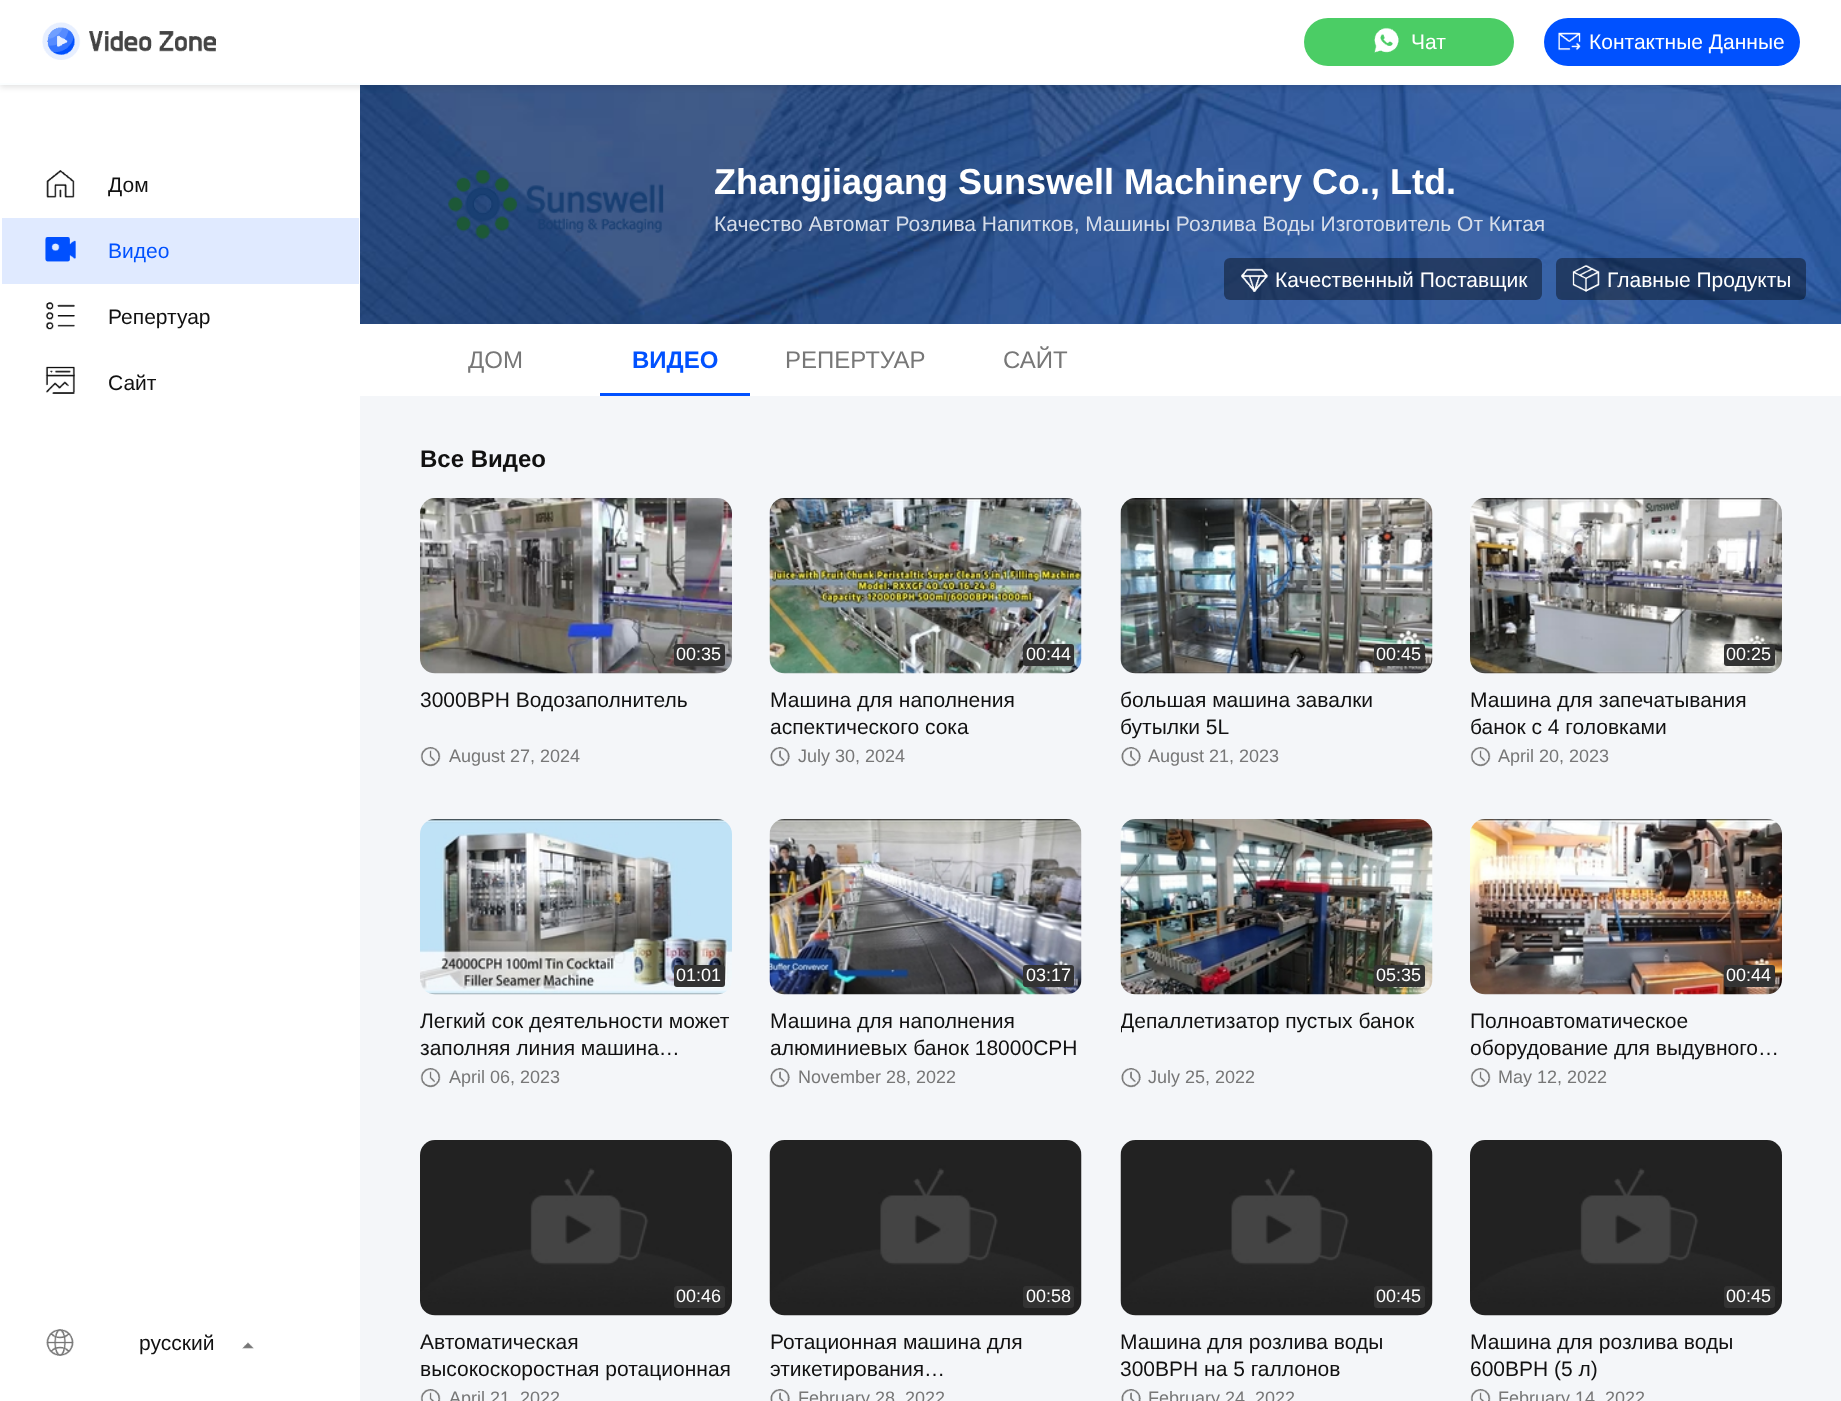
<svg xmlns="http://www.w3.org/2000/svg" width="1841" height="1401">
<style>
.a{font:21px Liberation Sans;fill:#fff}
.b{font:21px Liberation Sans;fill:#111}
.c{font:21px Liberation Sans;fill:#0051ff}
.d{font:bold 36px Liberation Sans;fill:#fff}
.e{font:21px Liberation Sans;fill:#d6dde9}
.f{font:24px Liberation Sans;fill:#777}
.g{font:bold 24px Liberation Sans;fill:#0051ff}
.h{font:bold 24px Liberation Sans;fill:#111}
.i{font:18px Liberation Sans;fill:#fff}
.j{font:18px Liberation Sans;fill:#777}
</style>
<defs>
<clipPath id="clip1"><path d="M1121 1007h312v54H1121z"/></clipPath>
</defs>
<rect width="100%" height="100%" fill="#fff"/>
<image href="10.png" x="360" y="85" width="1481" height="239"/>
<path fill="#0000001f" filter="blur(3px)" d="M0 3h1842v84H0z"/>
<path fill="#fff" d="M0 0h1841v83H0z"/>
<path fill="#fbfeff" d="M0 83h1841v2H0z"/>
<image href="1.png" x="42" y="22" width="174" height="38"/>
<rect fill="#4bcd65" x="1304" y="18" width="210" height="48" rx="24"/>
<image href="2.png" x="1374" y="27" width="25" height="26"/>
<rect fill="#0051ff" x="1544" y="18" width="256" height="48" rx="24"/>
<image href="3.png" x="1558" y="32" width="23" height="19"/>
<image href="4.png" x="46" y="170" width="29" height="28"/>
<path fill="#e0eaff" d="M2 218h357v66H2z"/>
<image href="5.png" x="45" y="237" width="31" height="25"/>
<image href="6.png" x="45" y="302" width="30" height="28"/>
<image href="7.png" x="45" y="366" width="30" height="28"/>
<image href="8.png" x="46" y="1329" width="28" height="27"/>
<image href="9.png" x="242" y="1342" width="12" height="7"/>
<path fill="#f4f6f9" d="M360 396h1481v1005H360z"/>
<image href="11.png" x="448" y="170" width="216" height="70"/>
<rect fill="#00000066" x="1224" y="258" width="318" height="42" rx="6"/>
<image href="12.png" x="1241" y="268" width="28" height="24"/>
<rect fill="#00000066" x="1556" y="258" width="250" height="42" rx="6"/>
<image href="13.png" x="1572" y="264" width="28" height="28"/>
<path fill="#0051ff" d="M600 393h150v3H600z"/>
<image href="14.png" x="420" y="498" width="312" height="176"/>
<rect fill="#333" x="674" y="644" width="51" height="22" rx="3"/>
<image href="15.png" x="420" y="747" width="21" height="20"/>
<image href="16.png" x="769" y="498" width="313" height="176"/>
<rect fill="#333" x="1023" y="644" width="51" height="22" rx="3"/>
<image href="17.png" x="770" y="747" width="20" height="20"/>
<image href="18.png" x="1120" y="498" width="313" height="176"/>
<rect fill="#333" x="1374" y="644" width="51" height="22" rx="3"/>
<image href="19.png" x="1121" y="747" width="20" height="20"/>
<image href="20.png" x="1470" y="498" width="312" height="176"/>
<rect fill="#333" x="1724" y="644" width="51" height="22" rx="3"/>
<image href="15.png" x="1470" y="747" width="21" height="20"/>
<image href="21.png" x="420" y="819" width="312" height="176"/>
<rect fill="#333" x="674" y="965" width="51" height="22" rx="3"/>
<image href="15.png" x="420" y="1068" width="21" height="20"/>
<image href="22.png" x="769" y="819" width="313" height="176"/>
<rect fill="#333" x="1023" y="965" width="51" height="22" rx="3"/>
<image href="17.png" x="770" y="1068" width="20" height="20"/>
<image href="23.png" x="1120" y="819" width="313" height="176"/>
<rect fill="#333" x="1374" y="965" width="51" height="22" rx="3"/>
<image href="19.png" x="1121" y="1068" width="20" height="20"/>
<image href="24.png" x="1470" y="819" width="312" height="176"/>
<rect fill="#333" x="1724" y="965" width="51" height="22" rx="3"/>
<image href="15.png" x="1470" y="1068" width="21" height="20"/>
<image href="25.png" x="420" y="1140" width="312" height="176"/>
<rect fill="#333" x="674" y="1286" width="51" height="22" rx="3"/>
<image href="26.png" x="420" y="1389" width="21" height="12"/>
<image href="27.png" x="769" y="1140" width="313" height="176"/>
<rect fill="#333" x="1023" y="1286" width="51" height="22" rx="3"/>
<image href="28.png" x="770" y="1389" width="20" height="12"/>
<image href="29.png" x="1120" y="1140" width="313" height="176"/>
<rect fill="#333" x="1374" y="1286" width="51" height="22" rx="3"/>
<image href="30.png" x="1121" y="1389" width="20" height="12"/>
<image href="31.png" x="1470" y="1140" width="312" height="176"/>
<rect fill="#333" x="1724" y="1286" width="51" height="22" rx="3"/>
<image href="26.png" x="1470" y="1389" width="21" height="12"/>
<text class="a" x="1411" y="49">Чат</text>
<text class="a" x="1589" y="49">Контактные Данные</text>
<text class="b" x="108" y="192">Дом</text>
<text class="c" x="108" y="258">Видео</text>
<text class="b" x="108" y="324">Репертуар</text>
<text class="b" x="108" y="390">Сайт</text>
<text class="b" x="139" y="1350">русский</text>
<text class="d" x="714" y="194">Zhangjiagang Sunswell Machinery Co., Ltd.</text>
<text class="e" x="714" y="231">Качество Автомат Розлива Напитков, Машины Розлива Воды Изготовитель От Китая</text>
<text class="a" x="1275" y="287">Качественный Поставщик</text>
<text class="a" x="1607" y="287">Главные Продукты</text>
<text class="f" x="468" y="368">ДОМ</text>
<text class="g" x="632" y="368">ВИДЕО</text>
<text class="f" x="785" y="368">РЕПЕРТУАР</text>
<text class="f" x="1003" y="368">САЙТ</text>
<text class="h" x="420" y="467">Все Видео</text>
<text class="i" x="676" y="660">00:35</text>
<text class="b" x="420" y="707">3000BPH Водозаполнитель</text>
<text class="j" x="449" y="762">August 27, 2024</text>
<text class="i" x="1026" y="660">00:44</text>
<text class="b" x="770" y="707">Машина для наполнения</text>
<text class="b" x="770" y="734">аспектического сока</text>
<text class="j" x="798" y="762">July 30, 2024</text>
<text class="i" x="1376" y="660">00:45</text>
<text class="b" x="1120" y="707">большая машина завалки</text>
<text class="b" x="1120" y="734">бутылки 5L</text>
<text class="j" x="1148" y="762">August 21, 2023</text>
<text class="i" x="1726" y="660">00:25</text>
<text class="b" x="1470" y="707">Машина для запечатывания</text>
<text class="b" x="1470" y="734">банок с 4 головками</text>
<text class="j" x="1498" y="762">April 20, 2023</text>
<text class="i" x="676" y="981">01:01</text>
<text class="b" x="420" y="1028">Легкий сок деятельности может</text>
<text class="b" x="420" y="1055">заполняя линия машина…</text>
<text class="j" x="449" y="1083">April 06, 2023</text>
<text class="i" x="1026" y="981">03:17</text>
<text class="b" x="770" y="1028">Машина для наполнения</text>
<text class="b" x="770" y="1055">алюминиевых банок 18000CPH</text>
<text class="j" x="798" y="1083">November 28, 2022</text>
<text class="i" x="1376" y="981">05:35</text>
<g clip-path="url(#clip1)">
<text class="b" x="1120" y="1028">Депаллетизатор пустых банок</text>
</g>
<text class="j" x="1148" y="1083">July 25, 2022</text>
<text class="i" x="1726" y="981">00:44</text>
<text class="b" x="1470" y="1028">Полноавтоматическое</text>
<text class="b" x="1470" y="1055">оборудование для выдувного…</text>
<text class="j" x="1498" y="1083">May 12, 2022</text>
<text class="i" x="676" y="1302">00:46</text>
<text class="b" x="420" y="1349">Автоматическая</text>
<text class="b" x="420" y="1376">высокоскоростная ротационная</text>
<text class="j" x="449" y="1404">April 21, 2022</text>
<text class="i" x="1026" y="1302">00:58</text>
<text class="b" x="770" y="1349">Ротационная машина для</text>
<text class="b" x="770" y="1376">этикетирования…</text>
<text class="j" x="798" y="1404">February 28, 2022</text>
<text class="i" x="1376" y="1302">00:45</text>
<text class="b" x="1120" y="1349">Машина для розлива воды</text>
<text class="b" x="1120" y="1376">300BPH на 5 галлонов</text>
<text class="j" x="1148" y="1404">February 24, 2022</text>
<text class="i" x="1726" y="1302">00:45</text>
<text class="b" x="1470" y="1349">Машина для розлива воды</text>
<text class="b" x="1470" y="1376">600BPH (5 л)</text>
<text class="j" x="1498" y="1404">February 14, 2022</text>
</svg>
